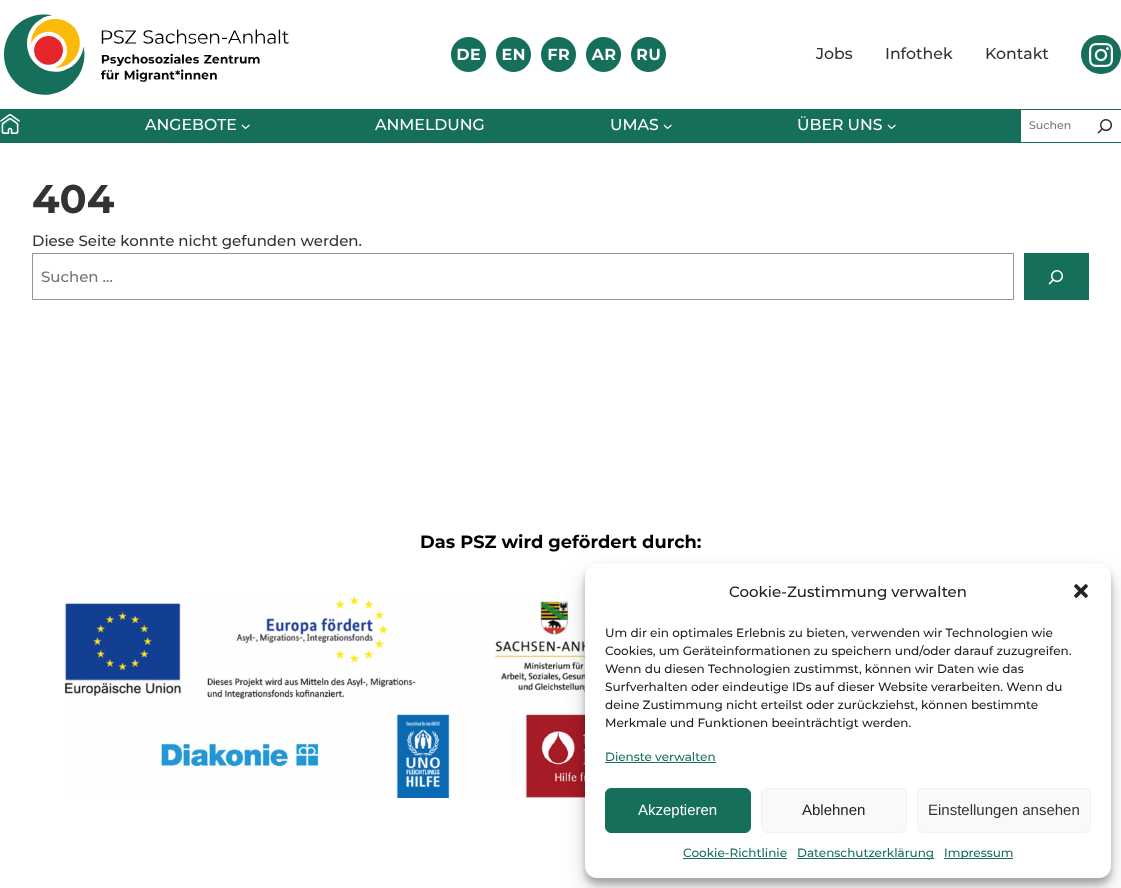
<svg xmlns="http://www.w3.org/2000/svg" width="1121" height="888">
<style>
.a{font:500 15.75px Montserrat;fill:#333}
.b{font:500 15.75px Montserrat;fill:#fff}
.c{font:500 11px Montserrat;fill:#757575}
.d{font:bold 40px Montserrat;fill:#333}
.e{font:500 15px Montserrat;fill:#333}
.f{font:500 15px Montserrat;fill:#757575}
.g{font:bold 17.8px Montserrat;fill:#000}
.h{font:500 15px Montserrat;fill:#222}
.i{font:500 12px Montserrat;fill:#222}
.j{font:500 12px Montserrat;fill:#156f5b}
.k{font:15px Liberation Sans;fill:#fff}
.l{font:15px Liberation Sans;fill:#222}
.m{font:15px Liberation Sans;fill:#333}
</style>
<rect width="100%" height="100%" fill="#fff"/>
<image href="1.png" x="4" y="14" width="285" height="81"/>
<image href="2.png" x="451" y="37" width="35" height="35"/>
<image href="3.png" x="496" y="37" width="35" height="35"/>
<image href="4.png" x="541" y="37" width="35" height="35"/>
<image href="5.png" x="586" y="37" width="35" height="35"/>
<image href="6.png" x="631" y="37" width="35" height="35"/>
<rect fill="#156f5b" x="1081" y="35" width="40" height="39" rx="19.5"/>
<image href="7.png" x="1089" y="43" width="24" height="24"/>
<path fill="#156f5b" d="M0 109h1121v34H0z"/>
<image href="8.png" x="0" y="114" width="20" height="20"/>
<path fill="none" stroke="#fff" stroke-width="1.2" d="M242 125l3.5 3.5l4-3.5"/>
<path fill="none" stroke="#fff" stroke-width="1.2" d="M664 125l3.5 3.5l4-3.5"/>
<path fill="none" stroke="#fff" stroke-width="1.2" d="M888 125l3.5 3.5l4-3.5"/>
<path fill="#fff" d="M1021 110h100v32H1021z"/>
<image href="9.png" x="1097" y="119" width="16" height="15"/>
<path fill="none" stroke="#949494" d="M32.5 253.5h981v46H32.5z"/>
<path fill="#156f5b" d="M1024 253h65v47H1024z"/>
<image href="10.png" x="1048" y="270" width="16" height="15"/>
<image href="11.png" x="64" y="595" width="521" height="203"/>
<rect fill="#0000003b" filter="blur(3px)" x="585" y="570" width="526" height="314" rx="12"/>
<rect fill="#00000030" filter="blur(10px)" x="585" y="574" width="526" height="314" rx="12"/>
<rect fill="#fff" x="585" y="564" width="526" height="314" rx="12"/>
<image href="12.png" x="1074" y="584" width="14" height="14"/>
<path fill="#156f5b" d="M605 762h111v1H605z"/>
<rect fill="#156f5b" stroke="#156f5b" x="605.5" y="788.5" width="145" height="44" rx="5.5"/>
<rect fill="#f9f9f9" stroke="#f2f2f2" x="761.5" y="788.5" width="145" height="44" rx="5.5"/>
<rect fill="#f9f9f9" stroke="#f2f2f2" x="917.5" y="788.5" width="173" height="44" rx="5.5"/>
<path fill="#156f5b" d="M683 858h104v1H683z"/>
<path fill="#156f5b" d="M797 858h137v1H797z"/>
<path fill="#156f5b" d="M944 858h69v1H944z"/>
<text class="a" x="816" y="59">Jobs</text>
<text class="a" x="885" y="59">Infothek</text>
<text class="a" x="985" y="59">Kontakt</text>
<text class="b" x="145" y="130">ANGEBOTE</text>
<text class="b" x="375" y="130">ANMELDUNG</text>
<text class="b" x="610" y="130">UMAS</text>
<text class="b" x="797" y="130">ÜBER UNS</text>
<text class="c" x="1029" y="129">Suchen</text>
<text class="d" x="32" y="213">404</text>
<text class="e" x="32" y="246">Diese Seite konnte nicht gefunden werden.</text>
<text class="f" x="41" y="282">Suchen …</text>
<text class="g" x="420" y="548">Das PSZ wird gefördert durch:</text>
<text class="h" x="729" y="597">Cookie-Zustimmung verwalten</text>
<text class="i" x="605" y="637">Um dir ein optimales Erlebnis zu bieten, verwenden wir Technologien wie</text>
<text class="i" x="605" y="655">Cookies, um Geräteinformationen zu speichern und/oder darauf zuzugreifen.</text>
<text class="i" x="605" y="673">Wenn du diesen Technologien zustimmst, können wir Daten wie das</text>
<text class="i" x="605" y="691">Surfverhalten oder eindeutige IDs auf dieser Website verarbeiten. Wenn du</text>
<text class="i" x="605" y="709">deine Zustimmung nicht erteilst oder zurückziehst, können bestimmte</text>
<text class="i" x="605" y="727">Merkmale und Funktionen beeinträchtigt werden.</text>
<text class="j" x="605" y="761">Dienste verwalten</text>
<text class="k" x="638" y="815">Akzeptieren</text>
<text class="l" x="802" y="815">Ablehnen</text>
<text class="m" x="928" y="815">Einstellungen ansehen</text>
<text class="j" x="683" y="857">Cookie-Richtlinie</text>
<text class="j" x="797" y="857">Datenschutzerklärung</text>
<text class="j" x="944" y="857">Impressum</text>
</svg>
